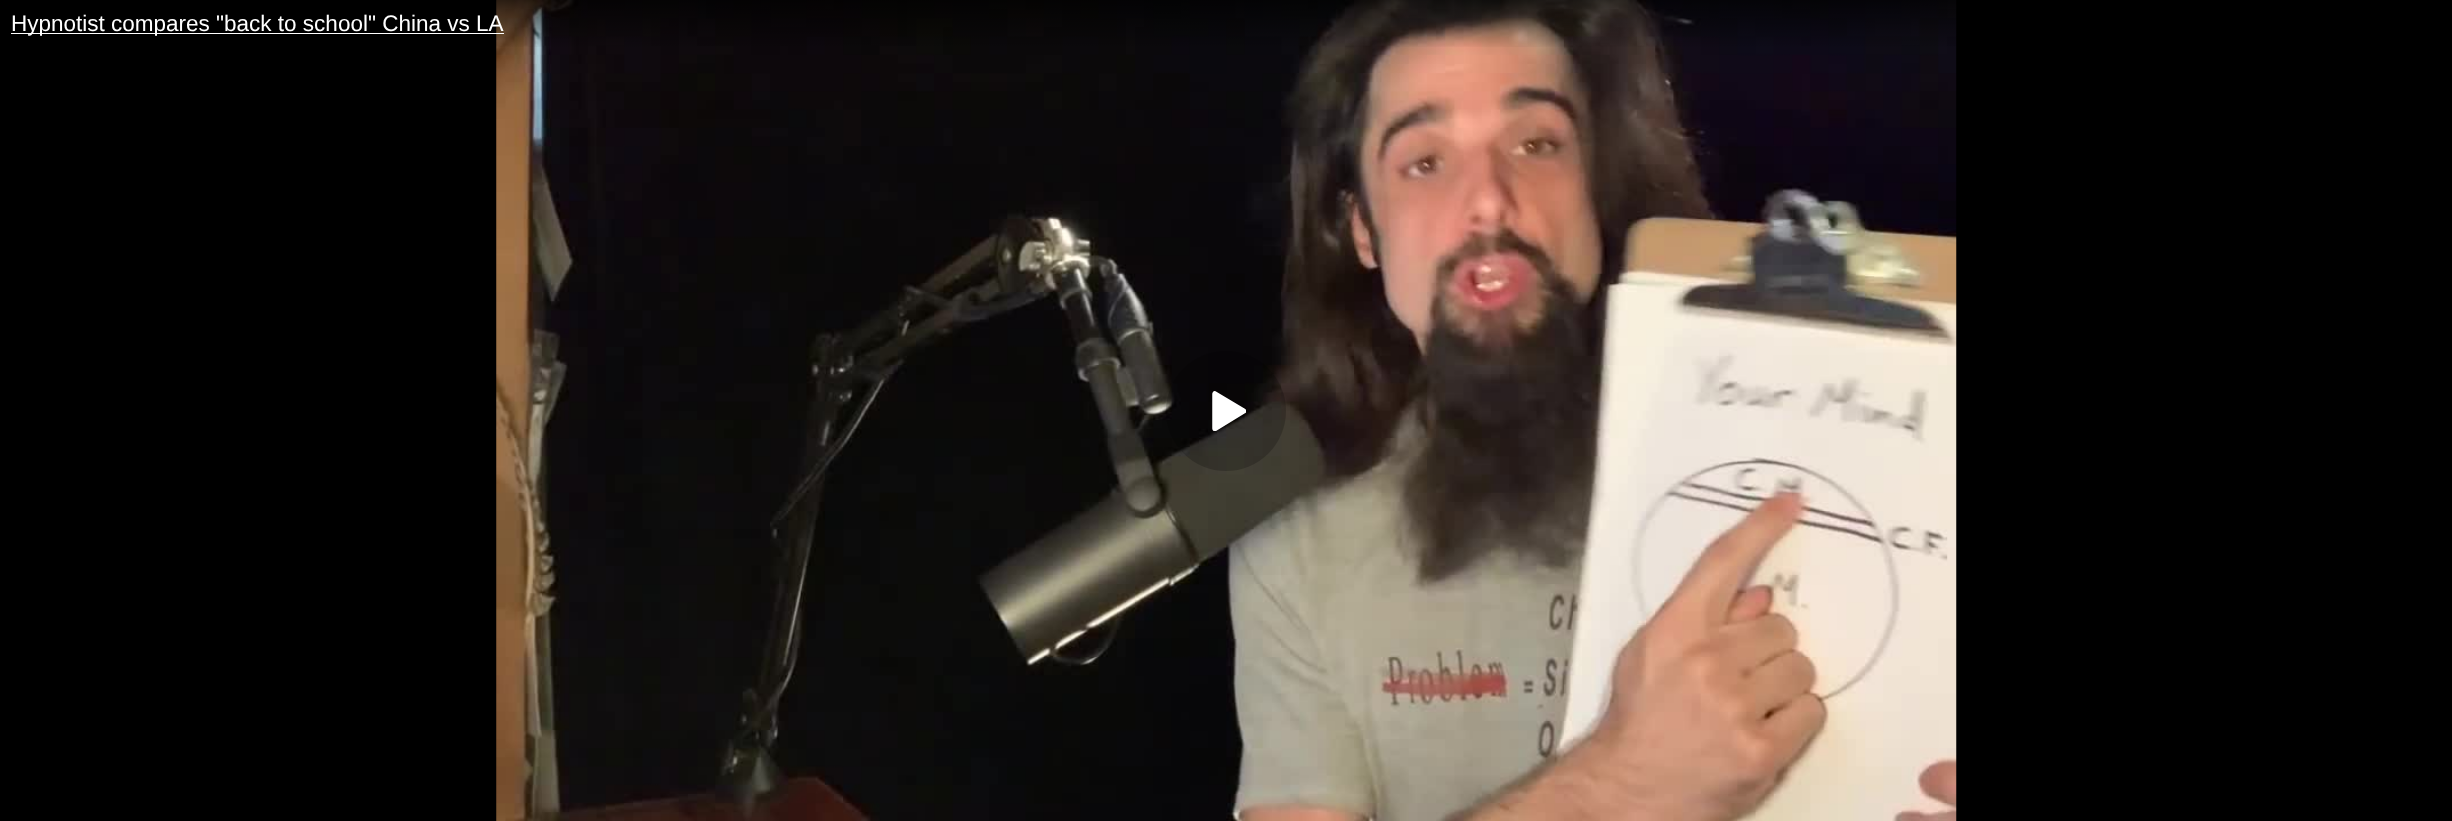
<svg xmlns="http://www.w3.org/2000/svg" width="2452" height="821">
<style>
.a{font:22.5px Liberation Sans;fill:#fff}
</style>
<defs>
<linearGradient id="g1" gradientUnits="userSpaceOnUse" x1="1226" y1="0" x2="1226" y2="49"><stop offset="0" stop-color="#000" stop-opacity="0.7"/><stop offset="1" stop-color="#000" stop-opacity="0"/></linearGradient>
<clipPath id="clip1"><path d="M1206 391h40v40H1206z"/></clipPath>
</defs>
<rect width="100%" height="100%" fill="#000"/>
<image href="1.png" x="496" y="0" width="1461" height="821"/>
<path fill="url(#g1)" d="M496 0h1461v47H496z"/>
<path fill="#fff" d="M11 33h493v1H11z"/>
<circle fill="#00000033" cx="1226" cy="411" r="60"/>
<path fill="#fff" d="M1243.5 411l-28.5-17v34.5z"/>
<g clip-path="url(#clip1)">
<path fill="none" stroke="#fff" stroke-width="5.5" stroke-linejoin="round" d="M1243.5 411l-28.5-17v34.5z"/>
</g>
<text class="a" x="11" y="31">Hypnotist compares "back to school" China vs LA</text>
</svg>
